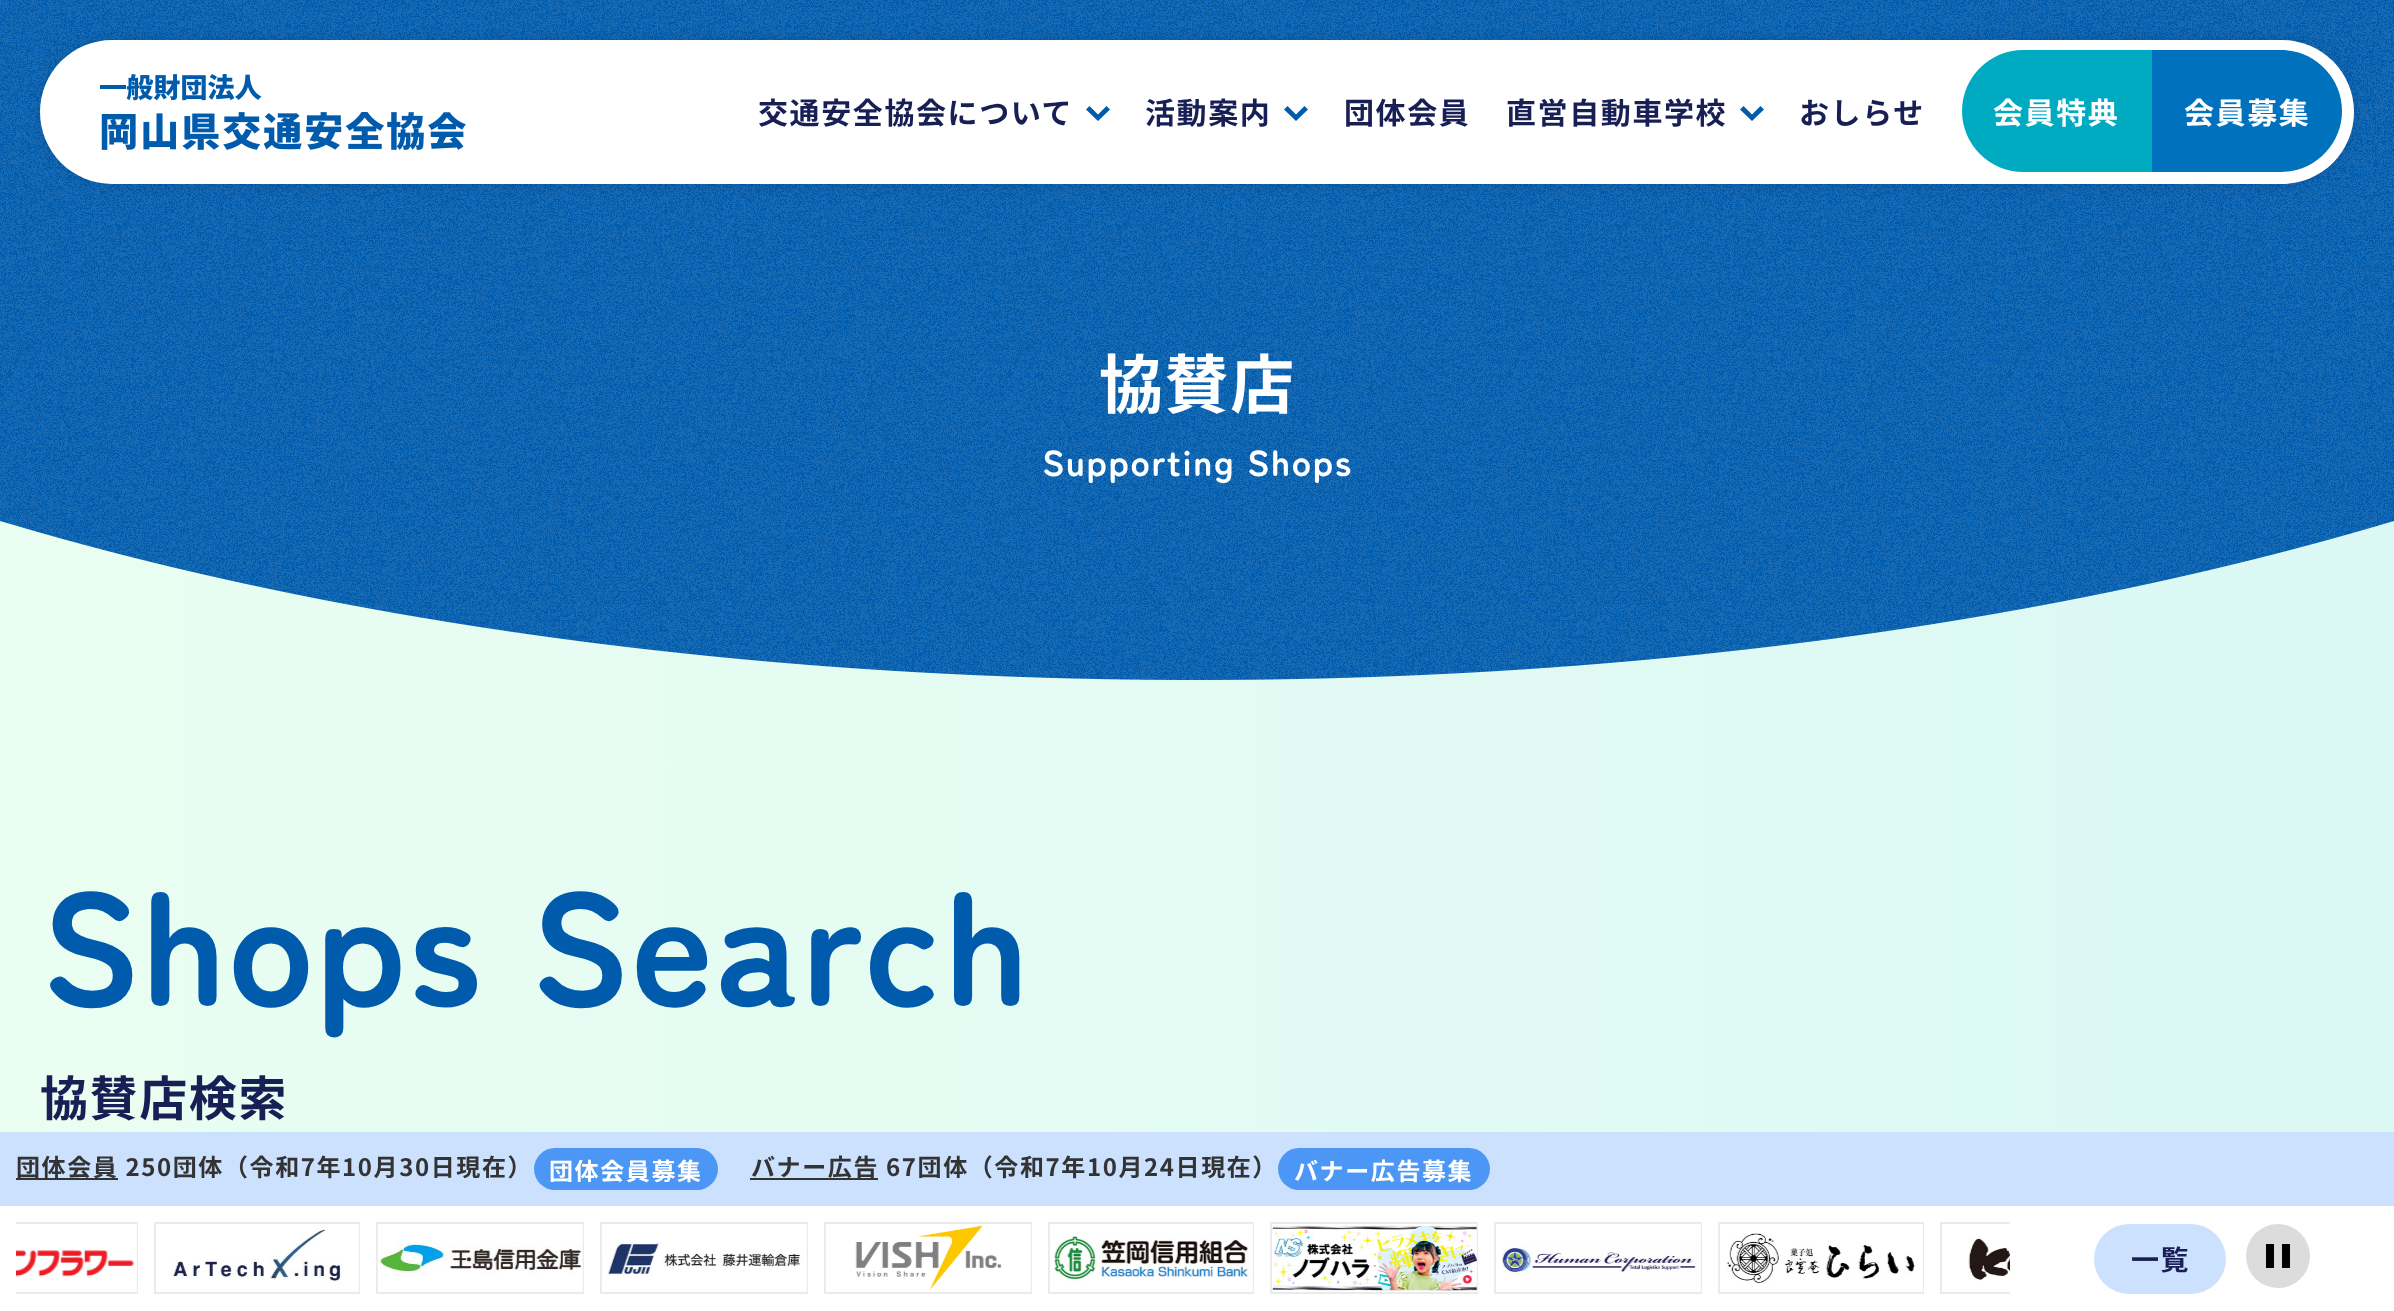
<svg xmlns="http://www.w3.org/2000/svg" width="2394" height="1311">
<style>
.a{font:bold 30px Noto Sans JP;letter-spacing:1.6px;fill:#171f55}
.b{font:bold 30px Noto Sans JP;letter-spacing:1.6px;fill:#fff}
.c{font:bold 64px Noto Sans JP;letter-spacing:1.6px;fill:#fff}
.d{font:bold 36px Zen Maru Gothic;letter-spacing:1.6px;fill:#fff}
.e{font:bold 160px Zen Maru Gothic;letter-spacing:1.6px;fill:#005bac}
.f{font:bold 48px Noto Sans JP;letter-spacing:1.6px;fill:#171f55}
.g{font:bold 24px Noto Sans JP;letter-spacing:1.6px;fill:#333}
.h{font:bold 24px Noto Sans JP;letter-spacing:1.6px;fill:#fff}
.i{font:bold 28px Noto Sans JP;letter-spacing:1.6px;fill:#171f55}
</style>
<defs>
<linearGradient id="g1" gradientUnits="userSpaceOnUse" x1="0" y1="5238" x2="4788" y2="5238"><stop offset="0" stop-color="#eafef1"/><stop offset="0.5" stop-color="#dbf8f5"/><stop offset="1" stop-color="#c3f2fe"/></linearGradient>
<clipPath id="clip1"><path d="M16 1206h1994v104H16z"/></clipPath>
</defs>
<rect width="100%" height="100%" fill="#fff"/>
<path fill="url(#g1)" d="M0 521h2394v611H0z"/>
<image href="1.png" x="0" y="0" width="2394" height="680"/>
<rect fill="#00000080" filter="blur(10px)" x="50" y="50" width="2294" height="124" rx="62"/>
<rect fill="#fff" x="40" y="40" width="2314" height="144" rx="72"/>
<image href="2.png" x="100" y="74" width="366" height="76"/>
<path fill="#005bac" d="M1110 109.5l-3.5-3.5l-8.5 8.5l-8.5-8.5l-3.5 3.5l12 11.5z"/>
<path fill="#005bac" d="M1308 109.5l-3.5-3.5l-8.5 8.5l-8.5-8.5l-3.5 3.5l12 11.5z"/>
<path fill="#005bac" d="M1764 109.5l-3.5-3.5l-8.5 8.5l-8.5-8.5l-3.5 3.5l12 11.5z"/>
<path fill="#00abc1" d="M2023 50h129v122h-129c-33.5 0-61-27.5-61-61c0-33.5 27.5-61 61-61z"/>
<path fill="#0071bc" d="M2152 50h129c33.5 0 61 27.5 61 61c0 33.5-27.5 61-61 61h-129z"/>
<path fill="#cbe1fd" d="M0 1132h2394v74H0z"/>
<path fill="#333" d="M16 1178h102v2H16z"/>
<rect fill="#4c97f6" x="534" y="1148" width="184" height="42" rx="21"/>
<path fill="#333" d="M750 1178h128v2H750z"/>
<rect fill="#4c97f6" x="1278" y="1148" width="212" height="42" rx="21"/>
<g clip-path="url(#clip1)">
<path fill="none" stroke="#ebebeb" stroke-width="2" d="M-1 1223h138v70H-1z"/>
</g>
<image href="3.png" x="16" y="1224" width="121" height="68"/>
<path fill="none" stroke="#ebebeb" stroke-width="2" d="M155 1223h204v70H155z"/>
<image href="4.png" x="170" y="1224" width="189" height="68"/>
<path fill="none" stroke="#ebebeb" stroke-width="2" d="M377 1223h206v70H377z"/>
<image href="5.png" x="379" y="1224" width="204" height="68"/>
<path fill="none" stroke="#ebebeb" stroke-width="2" d="M601 1223h206v70H601z"/>
<image href="6.png" x="607" y="1224" width="200" height="68"/>
<path fill="none" stroke="#ebebeb" stroke-width="2" d="M825 1223h206v70H825z"/>
<image href="7.png" x="855" y="1224" width="176" height="68"/>
<path fill="none" stroke="#ebebeb" stroke-width="2" d="M1049 1223h204v70H1049z"/>
<image href="8.png" x="1052" y="1224" width="201" height="68"/>
<path fill="none" stroke="#ebebeb" stroke-width="2" d="M1271 1223h206v70H1271z"/>
<image href="9.png" x="1272" y="1224" width="205" height="68"/>
<path fill="none" stroke="#ebebeb" stroke-width="2" d="M1495 1223h206v70H1495z"/>
<image href="10.png" x="1501" y="1224" width="200" height="68"/>
<path fill="none" stroke="#ebebeb" stroke-width="2" d="M1719 1223h204v70H1719z"/>
<image href="11.png" x="1726" y="1224" width="197" height="68"/>
<rect fill="#cbe1fd" x="2094" y="1224" width="132" height="70" rx="35"/>
<circle fill="#dcdcdc" cx="2278" cy="1256" r="32"/>
<path fill="#000" d="M2282 1244h8v24H2282z"/>
<path fill="#000" d="M2266 1244h8v24H2266z"/>
<text class="a" x="758" y="124">交通安全協会について</text>
<text class="a" x="1145" y="124">活動案内</text>
<text class="a" x="1344" y="124">団体会員</text>
<text class="a" x="1506" y="124">直営自動車学校</text>
<text class="a" x="1799" y="124">おしらせ</text>
<text class="b" x="1993" y="124">会員特典</text>
<text class="b" x="2184" y="124">会員募集</text>
<text class="c" x="1099" y="408">協賛店</text>
<text class="d" x="1042" y="476">Supporting Shops</text>
<text class="e" x="40" y="1006">Shops Search</text>
<text class="f" x="40" y="1116">協賛店検索</text>
<text class="g" x="16" y="1176">団体会員 250団体（令和7年10月30日現在）</text>
<text class="h" x="549" y="1180">団体会員募集</text>
<text class="g" x="751" y="1176">バナー広告 67団体（令和7年10月24日現在）</text>
<text class="h" x="1294" y="1180">バナー広告募集</text>
<text class="i" x="2131" y="1270">一覧</text>
<g clip-path="url(#clip1)">
<path fill="none" stroke="#ebebeb" stroke-width="2" d="M1941 1223h206v70H1941z"/>
</g>
<image href="12.png" x="1968" y="1238" width="42" height="43"/>
</svg>
